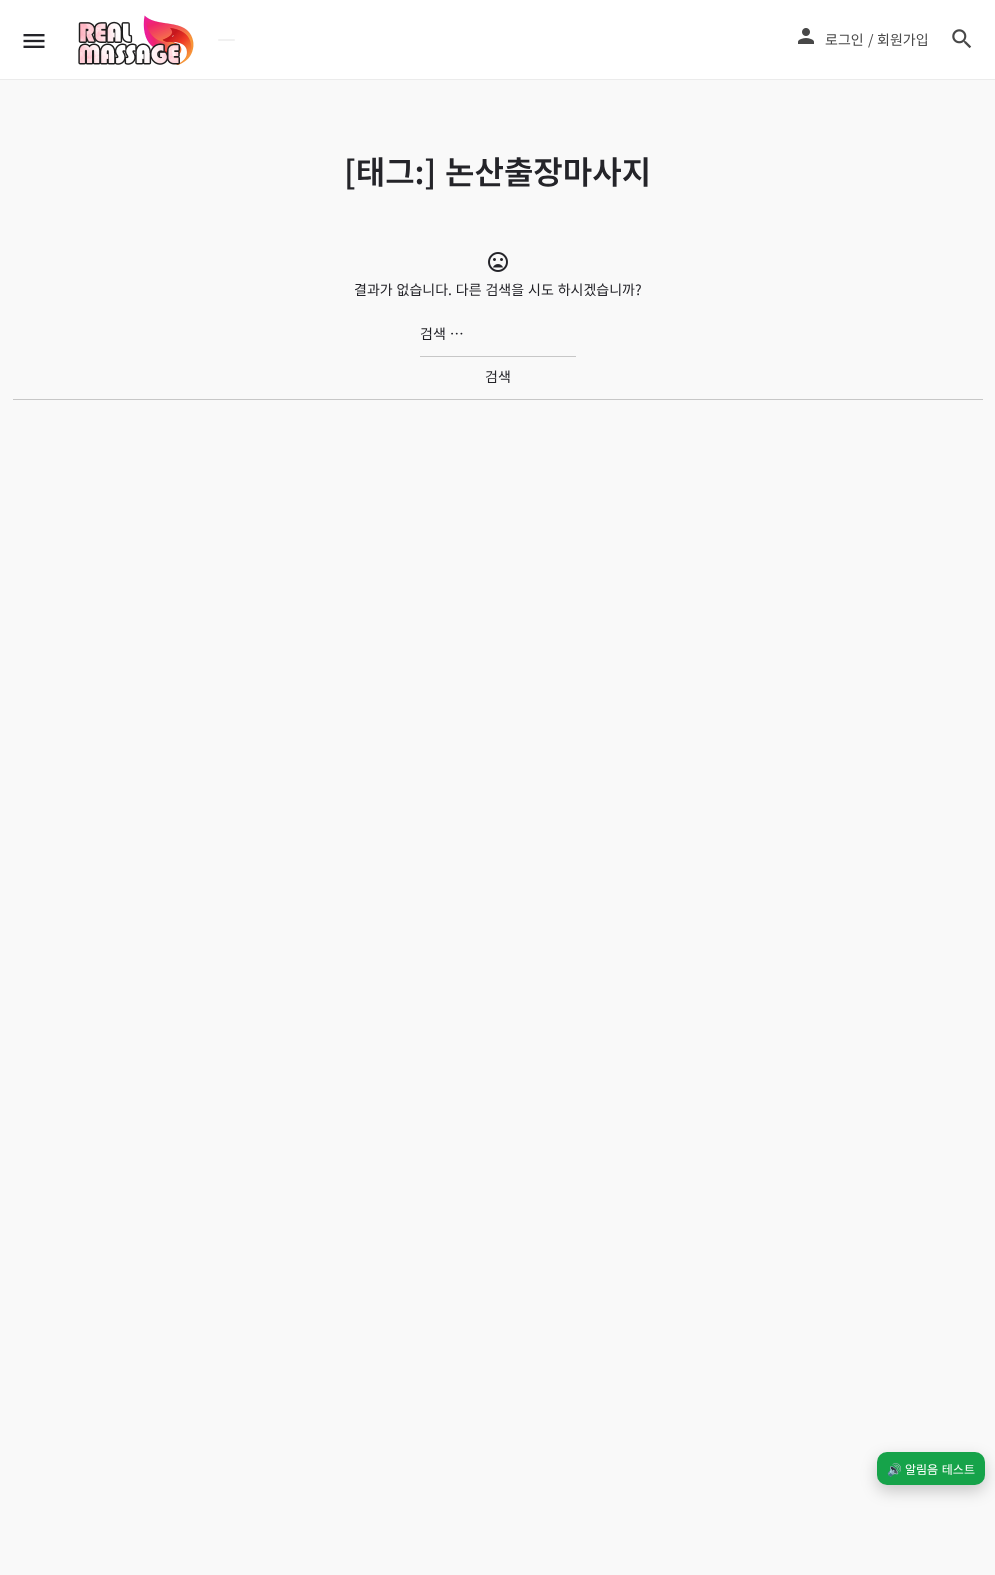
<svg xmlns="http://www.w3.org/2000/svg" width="995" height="1575">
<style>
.a{font:14px Noto Sans KR;fill:#484848}
.b{font:600 32px Noto Sans KR;fill:#242429}
.c{font:14px Noto Sans KR;fill:#242429}
.d{font:14px Noto Sans KR;fill:#1d1d23}
.e{font:12px Noto Color Emoji;fill:#fff}
.f{font:12px Noto Sans KR;fill:#fff}
</style>
<rect width="100%" height="100%" fill="#f9f9f9"/>
<path fill="#fff" d="M0 0h995v79H0z"/>
<path fill="#ebebeb" d="M0 79h995v1H0z"/>
<image href="1.png" x="23" y="34" width="22" height="14"/>
<image href="2.png" x="78" y="15" width="116" height="50"/>
<rect fill="#f1f1f1" x="218" y="39" width="17" height="2" rx="1"/>
<image href="3.png" x="798" y="28" width="16" height="16"/>
<image href="4.png" x="952" y="29" width="20" height="20"/>
<image href="5.png" x="488" y="252" width="20" height="20"/>
<path fill="#c7c7c7" d="M420 356h156v1H420z"/>
<path fill="#c7c7c7" d="M13 399h970v1H13z"/>
<rect fill="#00000033" filter="blur(8px)" x="877" y="1458" width="108" height="33" rx="10"/>
<rect fill="#16a34a" x="877" y="1452" width="108" height="33" rx="10"/>
<text class="a" x="825" y="45">로그인</text>
<text class="a" x="868" y="45">/</text>
<text class="a" x="877" y="45">회원가입</text>
<text class="b" x="344" y="184">[태그:]</text>
<text class="b" x="445" y="184">논산출장마사지</text>
<text class="c" x="354" y="295" word-spacing="0.75">결과가 없습니다. 다른 검색을 시도 하시겠습니까?</text>
<text class="d" x="420" y="339" word-spacing="0.75">검색 …</text>
<text class="c" x="485" y="382">검색</text>
<text class="e" x="887" y="1474">🔊</text>
<text class="f" x="905" y="1474" word-spacing="1">알림음 테스트</text>
</svg>
